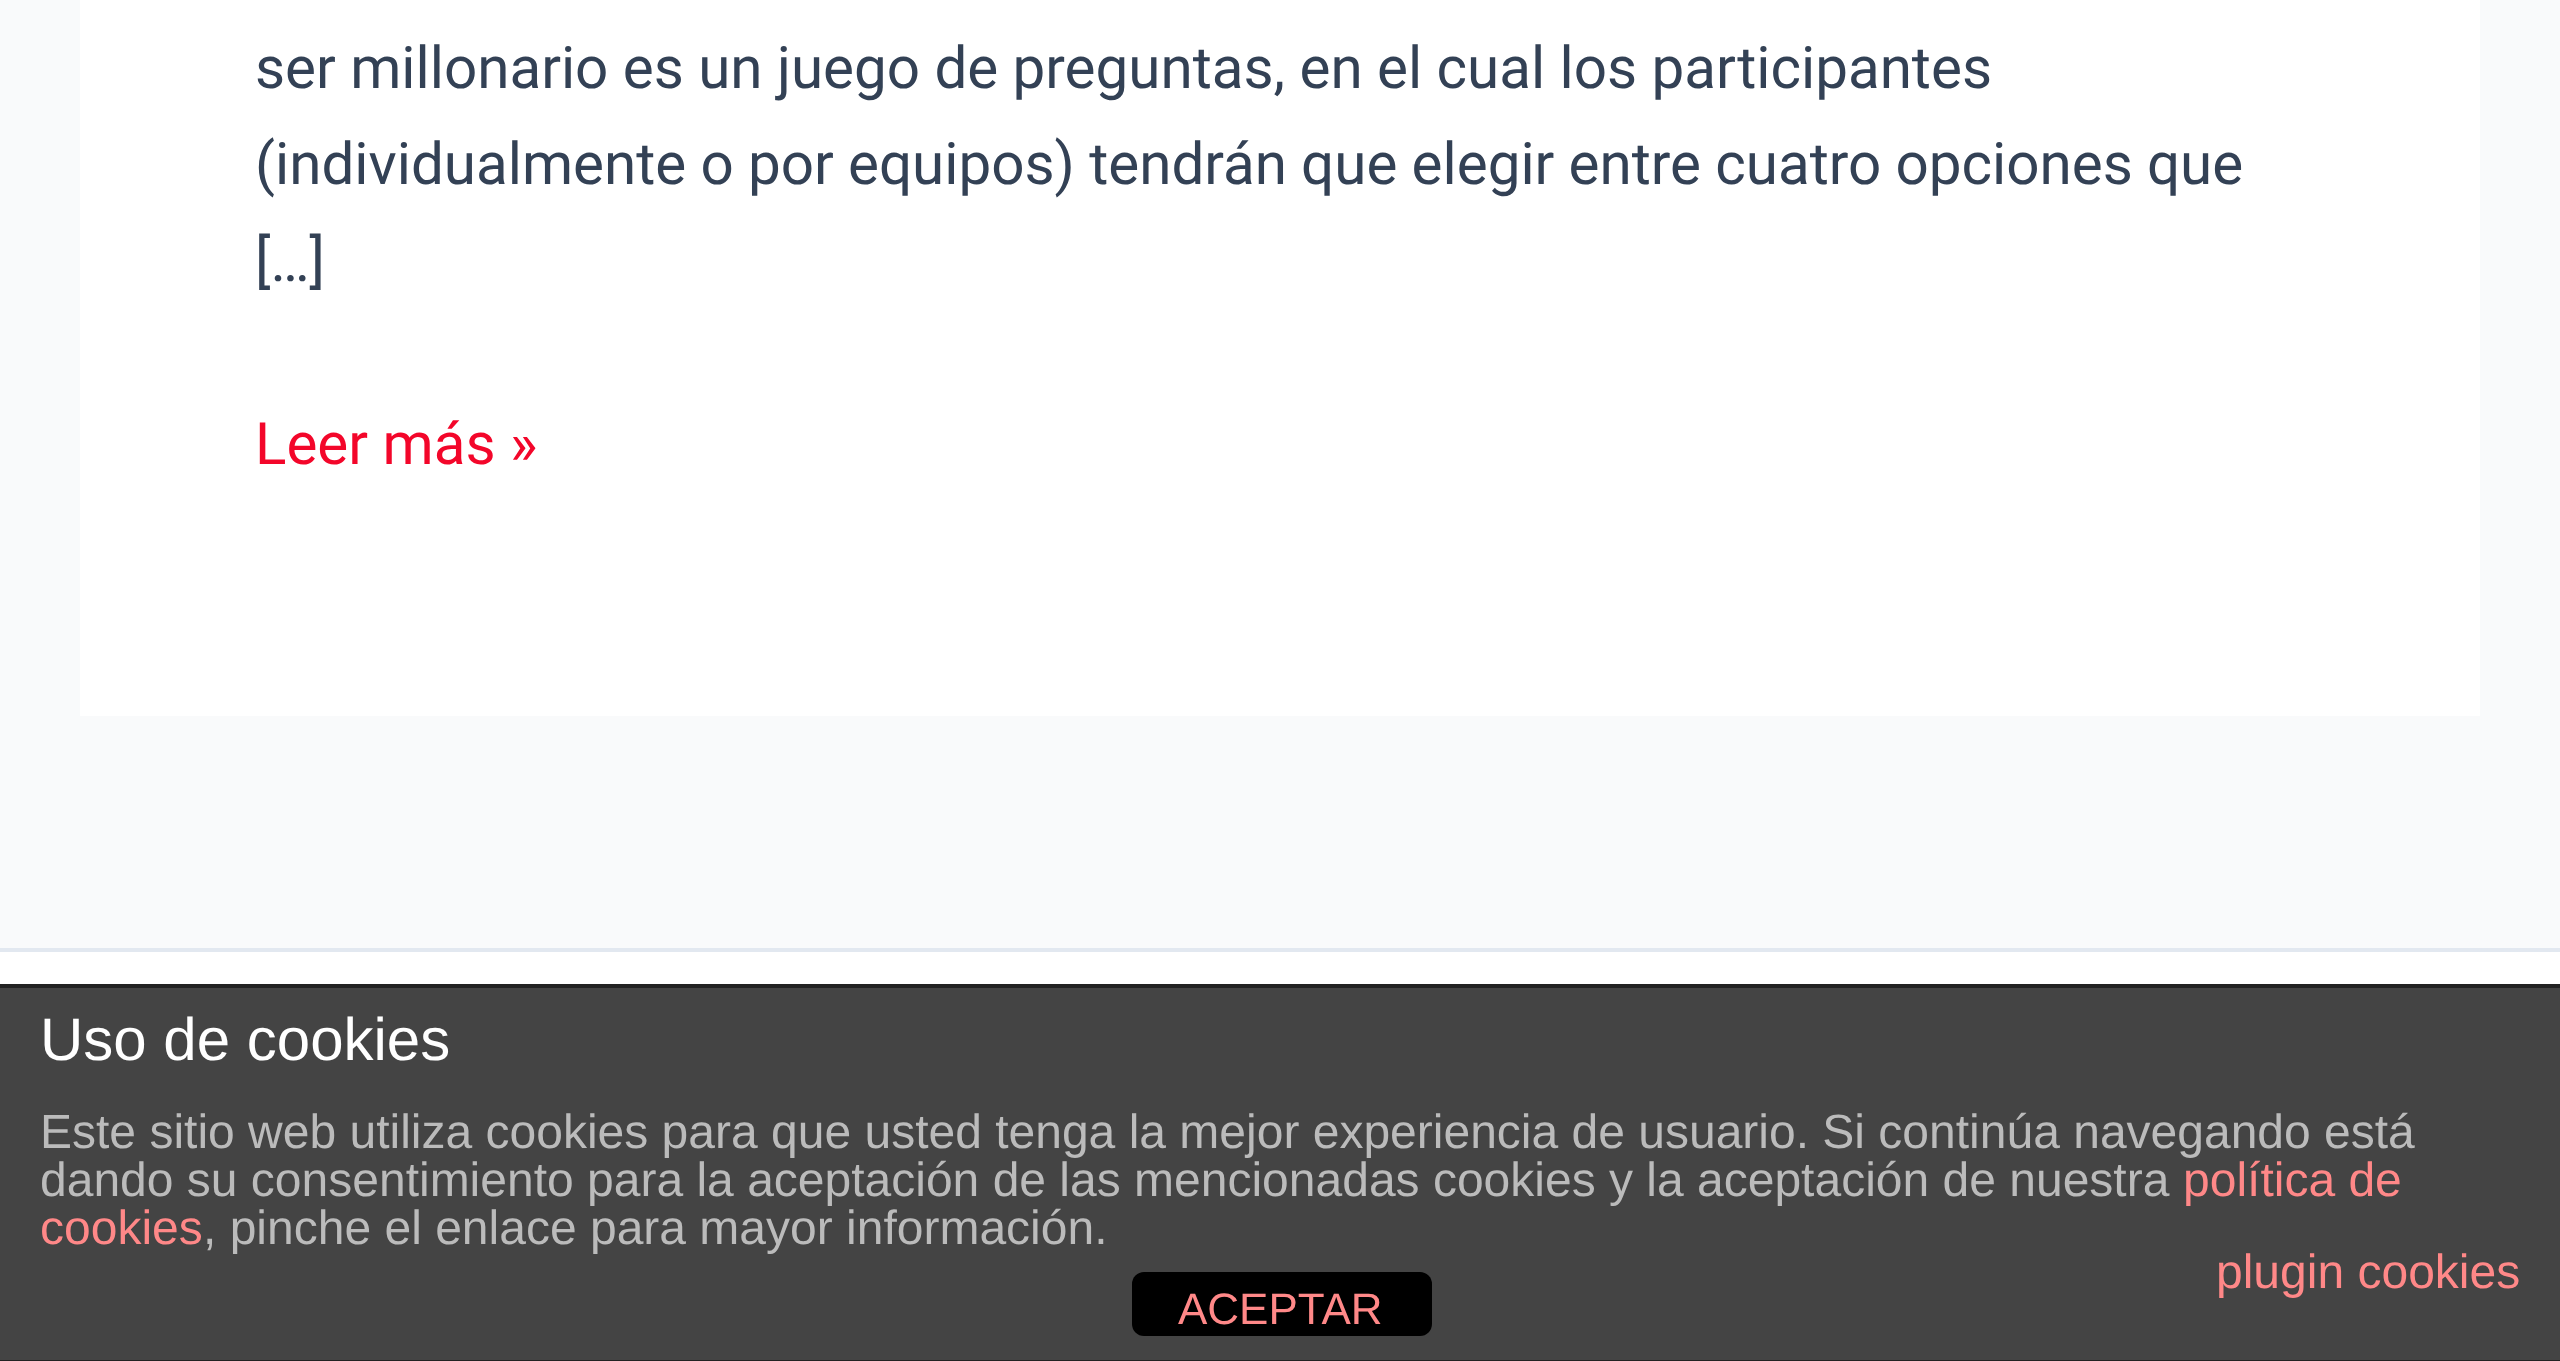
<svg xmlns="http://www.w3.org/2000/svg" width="2560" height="1361">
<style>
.a{font:58.35px Roboto;fill:#334155}
.b{font:58.35px Roboto;fill:#f3062a}
.c{font:60px Liberation Sans;fill:#fff}
.d{font:48px Liberation Sans;fill:#bbb}
.e{font:48px Liberation Sans;fill:#f88}
.f{font:44px Liberation Sans;fill:#f88}
</style>
<rect width="100%" height="100%" fill="#f9fafb"/>
<path fill="#fff" d="M80 0h2400v716H80z"/>
<path fill="#fff" d="M0 952h2560v32H0z"/>
<path fill="#e2e8f0" d="M0 948h2560v4H0z"/>
<path fill="#444" d="M0 988h2560v372H0z"/>
<path fill="#222" d="M0 984h2560v4H0z"/>
<path fill="#222" d="M0 1360h2560v1H0z"/>
<rect fill="#000" x="1132" y="1272" width="300" height="64" rx="12"/>
<text class="a" x="255" y="88" word-spacing="-0.1">ser millonario es un juego de preguntas, en el cual los participantes</text>
<text class="a" x="255" y="184" word-spacing="-0.25">(individualmente o por equipos) tendrán que elegir entre cuatro opciones que</text>
<text class="a" x="255" y="281">[…]</text>
<text class="b" x="255" y="464">Leer más »</text>
<text class="c" x="40" y="1060">Uso de cookies</text>
<text class="d" x="40" y="1148">Este sitio web utiliza cookies para que usted tenga la mejor experiencia de usuario. Si continúa navegando está</text>
<text class="d" x="40" y="1196">dando su consentimiento para la aceptación de las mencionadas cookies y la aceptación de nuestra</text>
<text class="e" x="2183" y="1196">política de</text>
<text class="e" x="40" y="1244">cookies</text>
<text class="d" x="203" y="1244">, pinche el enlace para mayor información.</text>
<text class="e" x="2216" y="1288">plugin cookies</text>
<text class="f" x="1178" y="1324">ACEPTAR</text>
</svg>
